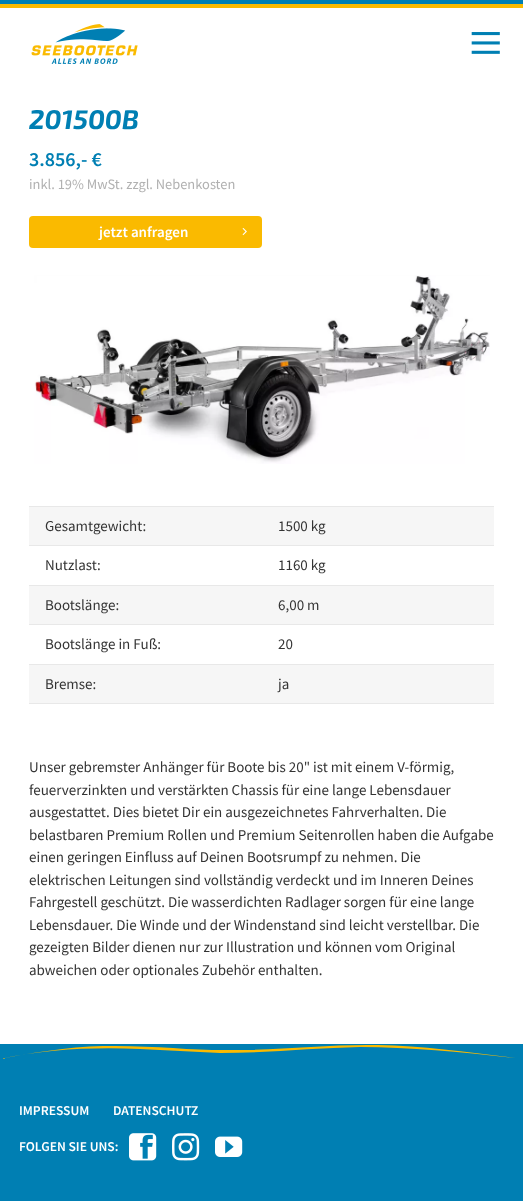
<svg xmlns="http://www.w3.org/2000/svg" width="523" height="1201">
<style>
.a{font:italic bold 27px 'Exo 2';fill:#007fb3}
.b{font:600 20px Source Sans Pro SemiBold;fill:#007fb3}
.c{font:14.4px Source Sans Pro;fill:#b1b1b1}
.d{font:600 15px Source Sans Pro SemiBold;fill:#fff}
.e{font:15px Source Sans Pro;fill:#343434}
.f{font:600 13.5px Source Sans Pro SemiBold;fill:#fff}
</style>
<rect width="100%" height="100%" fill="#fff"/>
<path fill="#007fb3" d="M0 0h523v4H0z"/>
<path fill="#faba00" d="M0 4h523v4H0z"/>
<image href="1.png" x="31" y="24" width="107" height="40"/>
<image href="2.png" x="471" y="32" width="29" height="22"/>
<rect fill="#faba00" x="29" y="216" width="233" height="32" rx="4"/>
<image href="3.png" x="242" y="228" width="5" height="8"/>
<image href="4.png" x="34" y="275" width="456" height="189"/>
<path fill="#e8e8e8" d="M29 506h465v1H29z"/>
<path fill="#f6f6f6" d="M29 507h465v38H29z"/>
<path fill="#e8e8e8" d="M29 545h465v1H29z"/>
<path fill="#e8e8e8" d="M29 585h465v1H29z"/>
<path fill="#f6f6f6" d="M29 586h465v38H29z"/>
<path fill="#e8e8e8" d="M29 624h465v1H29z"/>
<path fill="#e8e8e8" d="M29 664h465v1H29z"/>
<path fill="#f6f6f6" d="M29 665h465v38H29z"/>
<path fill="#e8e8e8" d="M29 703h465v1H29z"/>
<path fill="#007fb3" d="M0 1044h523v157H0z"/>
<path fill="#faba00" fill-rule="evenodd" d="M523 1059c-54-6-108-12-163-12c-47 1-93 6-140 6l-80-4c-46-2-94 0-140 10c30-6 67-12 103-13c52-1 91 5 131 4c49 0 97-6 144-5c48 1 97 8 145 14z"/>
<image href="5.png" x="129" y="1133" width="28" height="28"/>
<image href="6.png" x="172" y="1133" width="28" height="28"/>
<image href="7.png" x="215" y="1136" width="28" height="21"/>
<text class="a" x="29" y="129">201500B</text>
<text class="b" x="29" y="166">3.856,- €</text>
<text class="c" x="29" y="189">inkl. 19% MwSt. zzgl. Nebenkosten</text>
<text class="d" x="99" y="237">jetzt anfragen</text>
<text class="e" x="45" y="531">Gesamtgewicht:</text>
<text class="e" x="278" y="531">1500 kg</text>
<text class="e" x="45" y="570">Nutzlast:</text>
<text class="e" x="278" y="570">1160 kg</text>
<text class="e" x="45" y="610">Bootslänge:</text>
<text class="e" x="278" y="610">6,00 m</text>
<text class="e" x="45" y="649">Bootslänge in Fuß:</text>
<text class="e" x="278" y="649">20</text>
<text class="e" x="45" y="689">Bremse:</text>
<text class="e" x="278" y="689">ja</text>
<text class="e" x="29" y="772">Unser gebremster Anhänger für Boote bis 20" ist mit einem V-förmig,</text>
<text class="e" x="29" y="795">feuerverzinkten und verstärkten Chassis für eine lange Lebensdauer</text>
<text class="e" x="29" y="817">ausgestattet. Dies bietet Dir ein ausgezeichnetes Fahrverhalten. Die</text>
<text class="e" x="29" y="840">belastbaren Premium Rollen und Premium Seitenrollen haben die Aufgabe</text>
<text class="e" x="29" y="862">einen geringen Einfluss auf Deinen Bootsrumpf zu nehmen. Die</text>
<text class="e" x="29" y="885">elektrischen Leitungen sind vollständig verdeckt und im Inneren Deines</text>
<text class="e" x="29" y="907">Fahrgestell geschützt. Die wasserdichten Radlager sorgen für eine lange</text>
<text class="e" x="29" y="930">Lebensdauer. Die Winde und der Windenstand sind leicht verstellbar. Die</text>
<text class="e" x="29" y="952">gezeigten Bilder dienen nur zur Illustration und können vom Original</text>
<text class="e" x="29" y="975">abweichen oder optionales Zubehör enthalten.</text>
<text class="f" x="19" y="1115">IMPRESSUM</text>
<text class="f" x="113" y="1115">DATENSCHUTZ</text>
<text class="f" x="19" y="1151">FOLGEN SIE UNS:</text>
</svg>
